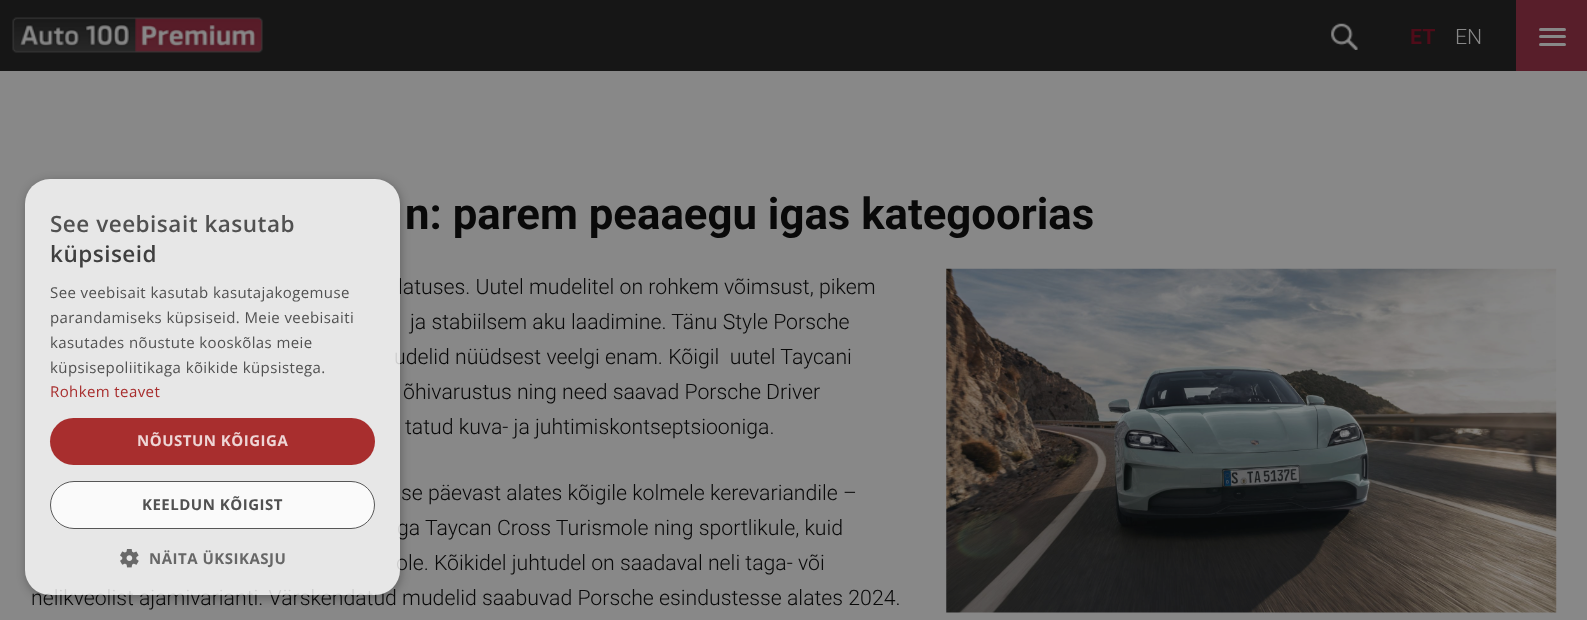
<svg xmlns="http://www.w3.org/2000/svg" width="1587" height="620">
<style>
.a{font:bold 21.25px Roboto;fill:#4f0c19}
.b{font:300 21.25px Roboto;fill:#888}
.c{font:bold 43.75px Roboto;fill:#090909}
.d{font:300 21.25px Roboto;fill:#090909}
.e{font:600 22.5px Open Sans;letter-spacing:0.5px;fill:#515151}
.f{font:600 22.5px Open Sans;letter-spacing:0.5px;fill:#3f3f3f}
.g{font:15px Open Sans;letter-spacing:0.4px;fill:#515151}
.h{font:15px Open Sans;letter-spacing:0.4px;fill:#a82d2d}
.i{font:bold 15px Open Sans;letter-spacing:0.5px;fill:#eed5d5}
.j{font:bold 15px Open Sans;letter-spacing:0.5px;fill:#515151}
.k{font:bold 15px Open Sans;letter-spacing:0.5px;fill:#676767}
</style>
<defs>
<clipPath id="clip1"><path d="M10 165h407v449h-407zm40 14h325c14 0 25 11 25 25v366c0 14-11 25-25 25h-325c-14 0-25-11-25-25v-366c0-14 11-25 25-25z" clip-rule="evenodd"/></clipPath>
</defs>
<rect width="100%" height="100%" fill="#888"/>
<path fill="#161616" d="M0 0h1516v71H0z"/>
<image href="1.png" x="12" y="17" width="251" height="36"/>
<image href="2.png" x="1331" y="23" width="27" height="27"/>
<path fill="#581e2a" d="M1516 0h71v71H1516z"/>
<rect fill="#888" x="1539" y="28" width="27" height="3" rx="1.5"/>
<rect fill="#888" x="1539" y="35" width="27" height="3" rx="1.5"/>
<rect fill="#888" x="1539" y="43" width="27" height="3" rx="1.5"/>
<image href="3.png" x="946" y="268" width="611" height="345"/>
<g clip-path="url(#clip1)">
<rect fill="#00000047" filter="blur(5px)" x="26" y="181" width="375" height="417" rx="25"/>
</g>
<text class="a" x="1410" y="44">ET</text>
<text class="b" x="1455" y="44">EN</text>
<text class="c" x="405" y="229">n: parem peaaegu igas kategoorias</text>
<text class="d" x="398" y="294">latuses. Uutel mudelitel on rohkem võimsust, pikem</text>
<text class="d" x="410" y="329">ja stabiilsem aku laadimine. Tänu Style Porsche</text>
<text class="d" xml:space="preserve" x="394" y="364">udelid nüüdsest veelgi enam. Kõigil  uutel Taycani</text>
<text class="d" x="403" y="399">õhivarustus ning need saavad Porsche Driver</text>
<text class="d" x="405" y="434">tatud kuva- ja juhtimiskontseptsiooniga.</text>
<text class="d" x="401" y="500">se päevast alates kõigile kolmele kerevariandile –</text>
<text class="d" x="397" y="535">ga Taycan Cross Turismole ning sportlikule, kuid</text>
<text class="d" x="396" y="570">ole. Kõikidel juhtudel on saadaval neli taga- või</text>
<text class="d" x="31" y="605">nelikveolist ajamivarianti. Värskendatud mudelid saabuvad Porsche esindustesse alates 2024.</text>
<rect fill="#ffffffcc" x="25" y="179" width="375" height="416" rx="25"/>
<text class="e" x="50" y="232">See veebisait kasutab</text>
<text class="f" x="50" y="262">küpsiseid</text>
<text class="g" x="50" y="298">See veebisait kasutab kasutajakogemuse</text>
<text class="g" x="50" y="323">parandamiseks küpsiseid. Meie veebisaiti</text>
<text class="g" x="50" y="348">kasutades nõustute kooskõlas meie</text>
<text class="g" x="50" y="373">küpsisepoliitikaga kõikide küpsistega.</text>
<text class="h" x="50" y="397">Rohkem teavet</text>
<rect fill="#990000cc" x="50" y="418" width="325" height="47" rx="23.5"/>
<text class="i" x="137" y="446">NÕUSTUN KÕIGIGA</text>
<rect fill="#ffffffcc" x="50" y="481" width="325" height="48" rx="24"/>
<rect fill="none" stroke="#2d2d2dcc" x="50.5" y="481.5" width="324" height="47" rx="23.5"/>
<text class="j" x="142" y="510">KEELDUN KÕIGIST</text>
<image href="4.png" x="120" y="549" width="19" height="19"/>
<text class="k" x="149" y="564">NÄITA ÜKSIKASJU</text>
</svg>
